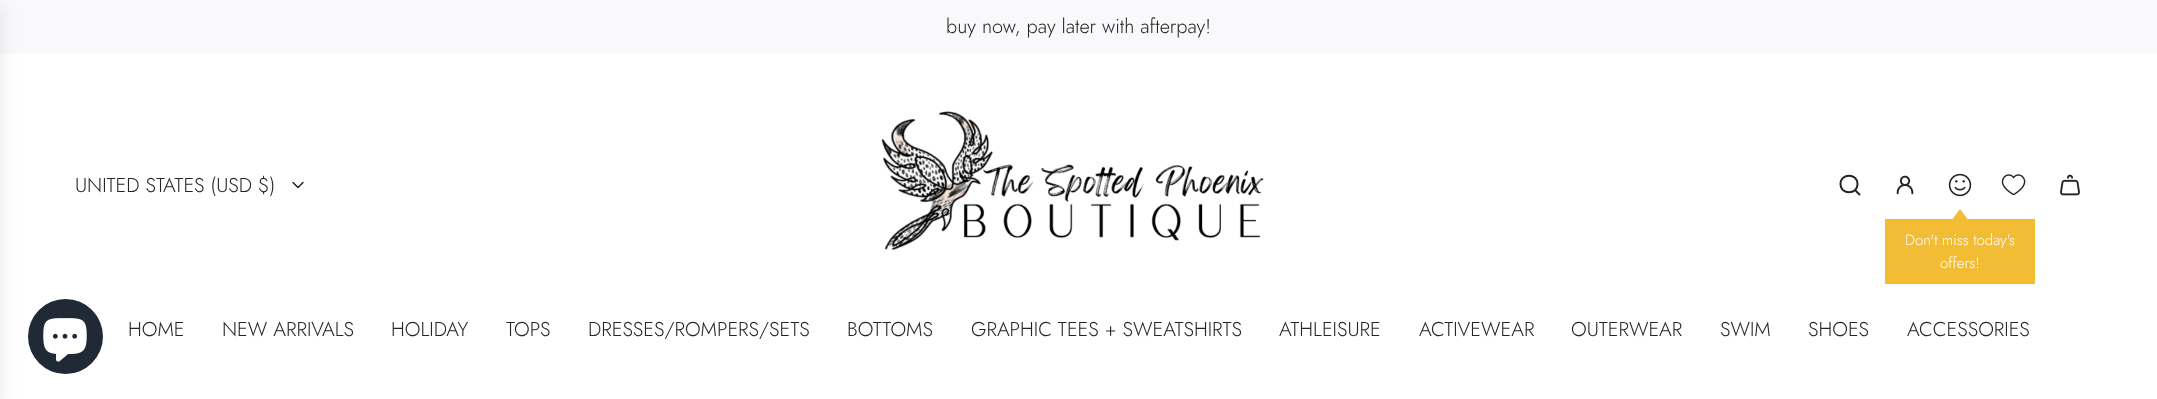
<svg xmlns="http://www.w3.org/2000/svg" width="2157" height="399">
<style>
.a{font:300 20px Jost;fill:#242424}
.b{font:300 15px Jost;fill:#fff}
</style>
<rect width="100%" height="100%" fill="#fff"/>
<path fill="#f9f9fb" d="M0 0h2157v53H0z"/>
<path fill="#0000001a" filter="blur(9.5px)" d="M-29 6h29v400H-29z"/>
<circle fill="#202a36" cx="65.5" cy="336.5" r="37.5"/>
<image href="1.png" x="43" y="318" width="44" height="44"/>
<path fill="none" stroke="#242424" stroke-width="1.5" stroke-linecap="round" stroke-linejoin="round" d="M293 182.5l5 5l5-5"/>
<image href="2.png" x="881" y="111" width="383" height="139"/>
<path fill="none" stroke="#242424" stroke-width="1.9" stroke-linecap="round" stroke-linejoin="round" d="M1855 190l4.5 4.5m-19-10.5c0 11 17 11 17 0c0-11-17-11-17 0z"/>
<image href="3.png" x="1896" y="175" width="18" height="20"/>
<image href="4.png" x="2001" y="174" width="25" height="22"/>
<image href="5.png" x="2060" y="174" width="20" height="22"/>
<image href="6.png" x="1948" y="173" width="24" height="24"/>
<path fill="#f2bd35" d="M1885 219h150v65H1885z"/>
<path fill="#f2bd35" d="M1967.5 219h-15l7.5-10z"/>
<text class="a" x="946" y="33">buy now, pay later with afterpay!</text>
<text class="a" x="75" y="192">UNITED STATES (USD $)</text>
<text class="b" x="1905" y="245">Don't miss today's</text>
<text class="b" x="1940" y="268">offers!</text>
<text class="a" x="128" y="336">HOME</text>
<text class="a" x="222" y="336">NEW ARRIVALS</text>
<text class="a" x="391" y="336">HOLIDAY</text>
<text class="a" x="506" y="336">TOPS</text>
<text class="a" x="588" y="336">DRESSES/ROMPERS/SETS</text>
<text class="a" x="847" y="336">BOTTOMS</text>
<text class="a" x="971" y="336">GRAPHIC TEES + SWEATSHIRTS</text>
<text class="a" x="1279" y="336">ATHLEISURE</text>
<text class="a" x="1419" y="336">ACTIVEWEAR</text>
<text class="a" x="1571" y="336">OUTERWEAR</text>
<text class="a" x="1720" y="336">SWIM</text>
<text class="a" x="1808" y="336">SHOES</text>
<text class="a" x="1907" y="336">ACCESSORIES</text>
</svg>
